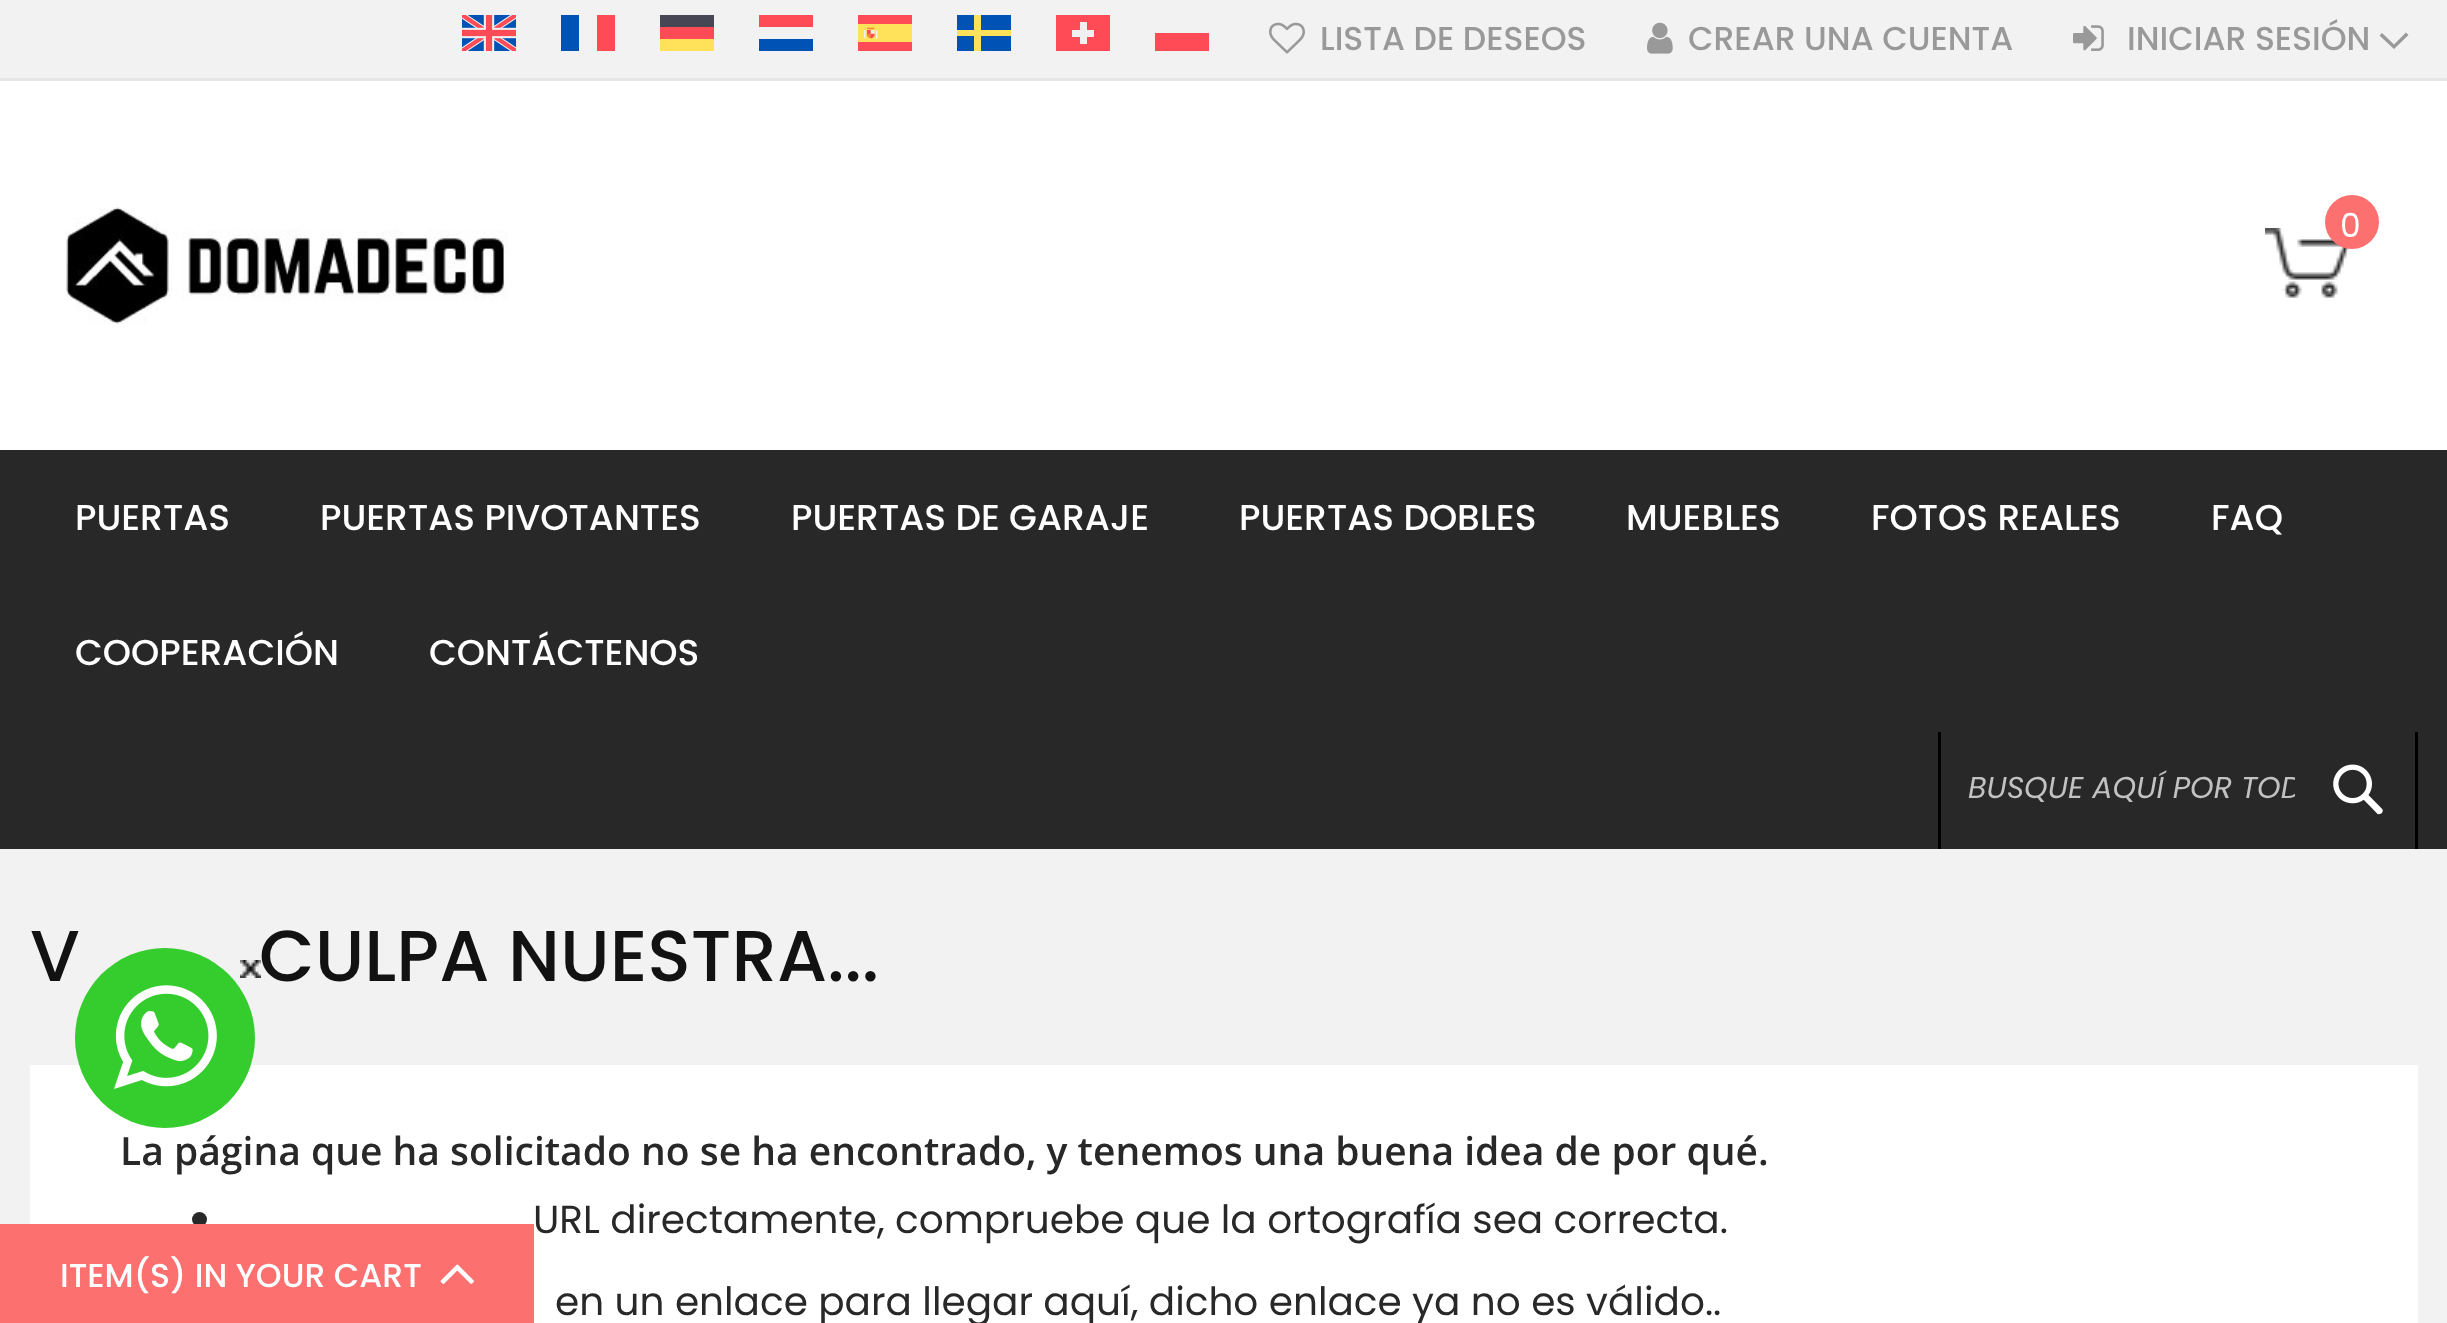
<svg xmlns="http://www.w3.org/2000/svg" width="2447" height="1323">
<style>
.a{font:500 33px Poppins;fill:#999}
.b{font:33px Poppins;fill:#fff}
.c{font:500 36px Poppins;fill:#fff}
.d{font:italic 30px Poppins;fill:#c2c2c2}
.e{font:500 72px Poppins;fill:#121212}
.f{font:600 39px Open Sans;fill:#282828}
.g{font:39px Poppins;fill:#282828}
.h{font:500 33px Poppins;fill:#fff}
</style>
<defs>
<clipPath id="clip1"><path d="M1968 765h327v48H1968z"/></clipPath>
</defs>
<rect width="100%" height="100%" fill="#f2f2f2"/>
<path fill="#fff" d="M0 81h2447v369H0z"/>
<path fill="#e7e7e7" d="M0 78h2447v3H0z"/>
<image href="1.png" x="462" y="15" width="54" height="36"/>
<path fill="#0052b4" d="M561 15h18v36H561z"/>
<path fill="#ff4b55" d="M597 15h18v36H597z"/>
<path fill="#464655" d="M660 15h54v12H660z"/>
<path fill="#ff4b55" d="M660 27h54v12H660z"/>
<path fill="#ffe15a" d="M660 39h54v12H660z"/>
<path fill="#ff4b55" d="M759 15h54v12H759z"/>
<path fill="#0052b4" d="M759 39h54v12H759z"/>
<image href="2.png" x="858" y="15" width="54" height="36"/>
<path fill="#0052b4" d="M957 15h54v36H957z"/>
<path fill="#ffe15a" d="M974 15h7v36H974z"/>
<path fill="#ffe15a" d="M957 30h54v6H957z"/>
<path fill="#ff4b55" d="M1056 15h54v36H1056z"/>
<path fill="#f0f0f0" d="M1072 30h22v7H1072z"/>
<path fill="#f0f0f0" d="M1080 22h7v22H1080z"/>
<path fill="#ff4b55" d="M1155 33h54v18H1155z"/>
<image href="3.png" x="1269" y="22" width="36" height="32"/>
<image href="4.png" x="1647" y="22" width="26" height="32"/>
<image href="5.png" x="2073" y="25" width="31" height="26"/>
<path fill="#999" d="M2394 44.5l-12-11.5l-2.5 2.5l14.5 13.5l14.5-14l-2.5-2.5z"/>
<image href="6.png" x="65" y="207" width="443" height="117"/>
<image href="7.png" x="2265" y="228" width="85" height="70"/>
<circle fill="#fc7070" cx="2352" cy="222" r="27"/>
<path fill="#282828" d="M0 450h2447v399H0z"/>
<path fill="#000" d="M2415 732h3v117H2415z"/>
<path fill="#000" d="M1938 732h3v117H1938z"/>
<image href="8.png" x="2333" y="764" width="50" height="51"/>
<path fill="#fff" d="M30 1065h2388v258H30z"/>
<circle fill="#282828" cx="199.5" cy="1219.5" r="7.5"/>
<path fill="#fc7070" d="M0 1224h534v99H0z"/>
<image href="11.png" x="440" y="1264" width="34" height="20"/>
<text class="a" x="1320" y="50">LISTA DE DESEOS</text>
<text class="a" x="1688" y="50">CREAR UNA CUENTA</text>
<text class="a" x="2127" y="50">INICIAR SESIÓN</text>
<text class="b" x="2340" y="237">0</text>
<text class="c" x="75" y="530">PUERTAS</text>
<text class="c" x="320" y="530">PUERTAS PIVOTANTES</text>
<text class="c" x="791" y="530">PUERTAS DE GARAJE</text>
<text class="c" x="1239" y="530">PUERTAS DOBLES</text>
<text class="c" x="1626" y="530">MUEBLES</text>
<text class="c" x="1871" y="530">FOTOS REALES</text>
<text class="c" x="2211" y="530">FAQ</text>
<text class="c" x="75" y="665">COOPERACIÓN</text>
<text class="c" x="429" y="665">CONTÁCTENOS</text>
<g clip-path="url(#clip1)">
<text class="d" x="1968" y="798">BUSQUE AQUÍ POR TOD</text>
</g>
<text class="e" x="30" y="981">V</text>
<text class="e" x="259" y="981">CULPA NUESTRA...</text>
<text class="f" x="120" y="1165">La página que ha solicitado no se ha encontrado, y tenemos una buena idea de por qué.</text>
<text class="g" x="533" y="1233">URL directamente, compruebe que la ortografía sea correcta.</text>
<text class="g" x="555" y="1315">en un enlace para llegar aquí, dicho enlace ya no es válido..</text>
<circle fill="#35cc2d" cx="165" cy="1038" r="90"/>
<image href="9.png" x="114" y="985" width="103" height="104"/>
<image href="10.png" x="240" y="960" width="21" height="18"/>
<text class="h" x="60" y="1287">ITEM(S) IN YOUR CART</text>
</svg>
